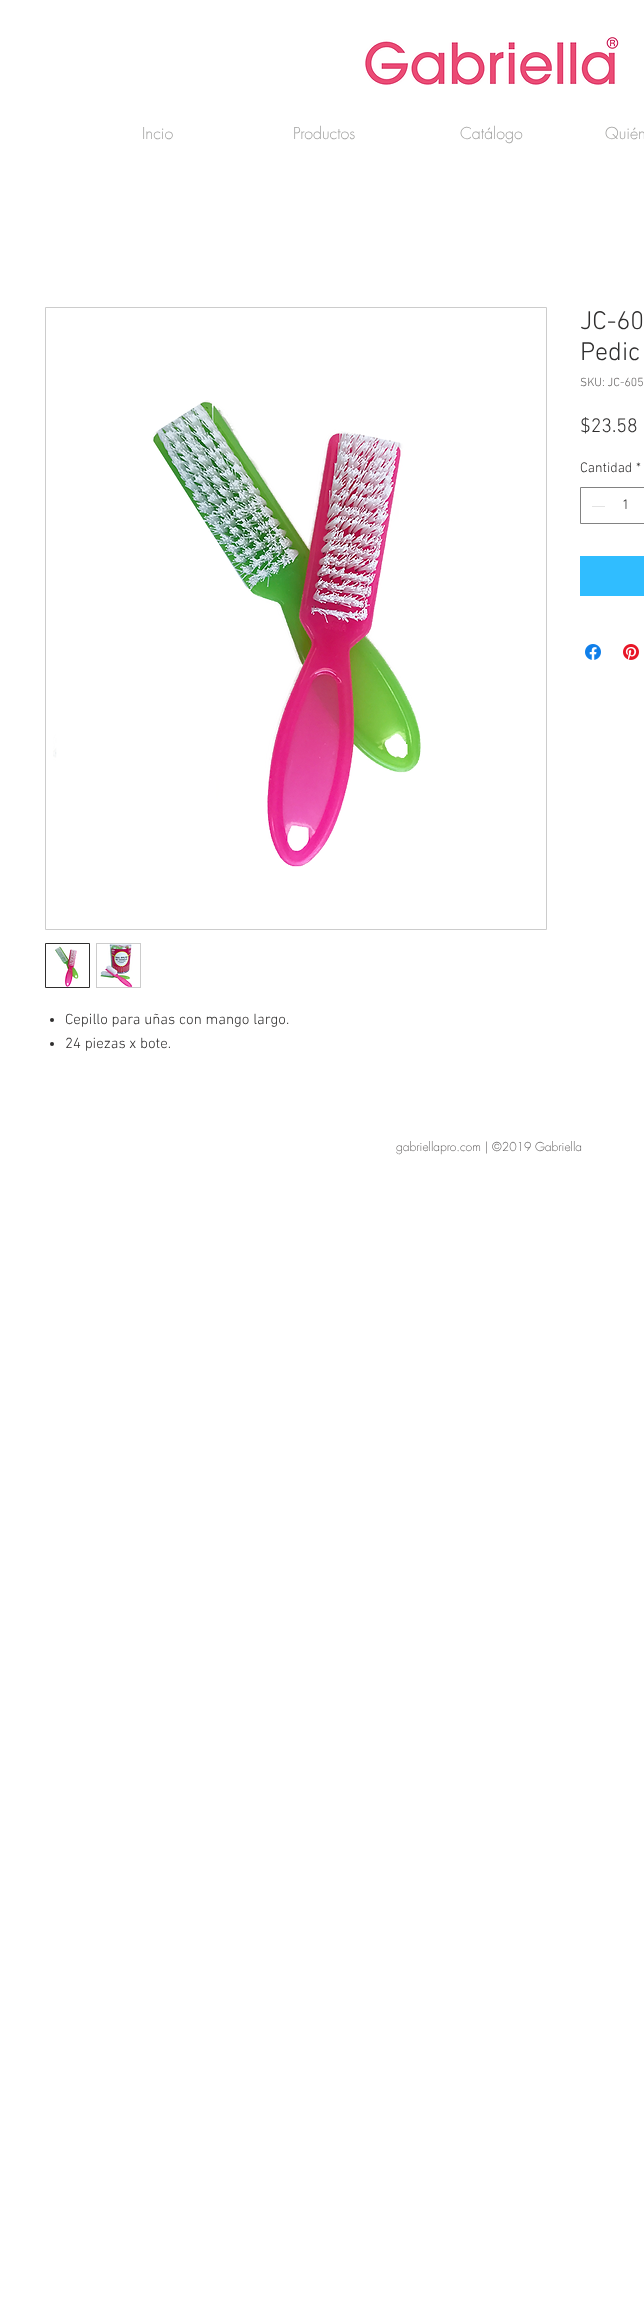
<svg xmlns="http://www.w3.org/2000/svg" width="644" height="2319">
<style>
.a{font:300 16px futura;fill:#a0a09f}
.b{font:300 26px 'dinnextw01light';fill:#2f2e2e}
.c{font:300 12px 'dinnextw01light';fill:#605e5e}
.d{font:300 20px 'dinnextw01light';fill:#2f2e2e}
.e{font:300 14px 'dinnextw01light';fill:#2f2e2e}
.f{font:300 15px 'dinnextw01light';fill:#2f2e2e}
.g{font:300 12px futura;fill:#605e5e}
</style>
<rect width="100%" height="100%" fill="#fff"/>
<image href="1.png" x="365" y="37" width="254" height="48"/>
<path fill="none" stroke="#828282" d="M580.5 487.5h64v36H580.5z"/>
<path fill="#e3e3e3" d="M592 506h13v1H592z"/>
<path fill="#30bdff" d="M580 556h64v40H580z"/>
<image href="2.png" x="585" y="644" width="16" height="16"/>
<image href="3.png" x="623" y="644" width="16" height="16"/>
<path fill="none" stroke="#ccc" d="M45.5 307.5h501v622H45.5z"/>
<image href="4.png" x="53" y="400" width="368" height="467"/>
<path fill="none" stroke="#2f2e2e" d="M45.5 943.5h44v44H45.5z"/>
<image href="5.png" x="46" y="944" width="43" height="43"/>
<path fill="#ccc" d="M96 943h45v45H96z"/>
<image href="6.png" x="97" y="944" width="43" height="43"/>
<circle fill="#2f2e2e" cx="52" cy="1020" r="2"/>
<circle fill="#2f2e2e" cx="52" cy="1044" r="2"/>
<text class="a" x="142" y="139">Incio</text>
<text class="a" x="293" y="139">Productos</text>
<text class="a" x="460" y="139">Catálogo</text>
<text class="a" x="605" y="139">Quién</text>
<text class="b" x="580" y="329">JC-60</text>
<text class="b" x="580" y="360">Pedic</text>
<text class="c" x="580" y="386">SKU: JC-605</text>
<text class="d" x="580" y="432">$23.58</text>
<text class="e" x="580" y="472">Cantidad</text>
<text class="e" x="636" y="472">*</text>
<text class="e" x="622" y="509">1</text>
<text class="f" x="65" y="1024">Cepillo para uñas con mango largo.</text>
<text class="f" x="65" y="1048">24 piezas x bote.</text>
<text class="g" x="396" y="1151">gabriellapro.com | ©2019 Gabriella</text>
</svg>
